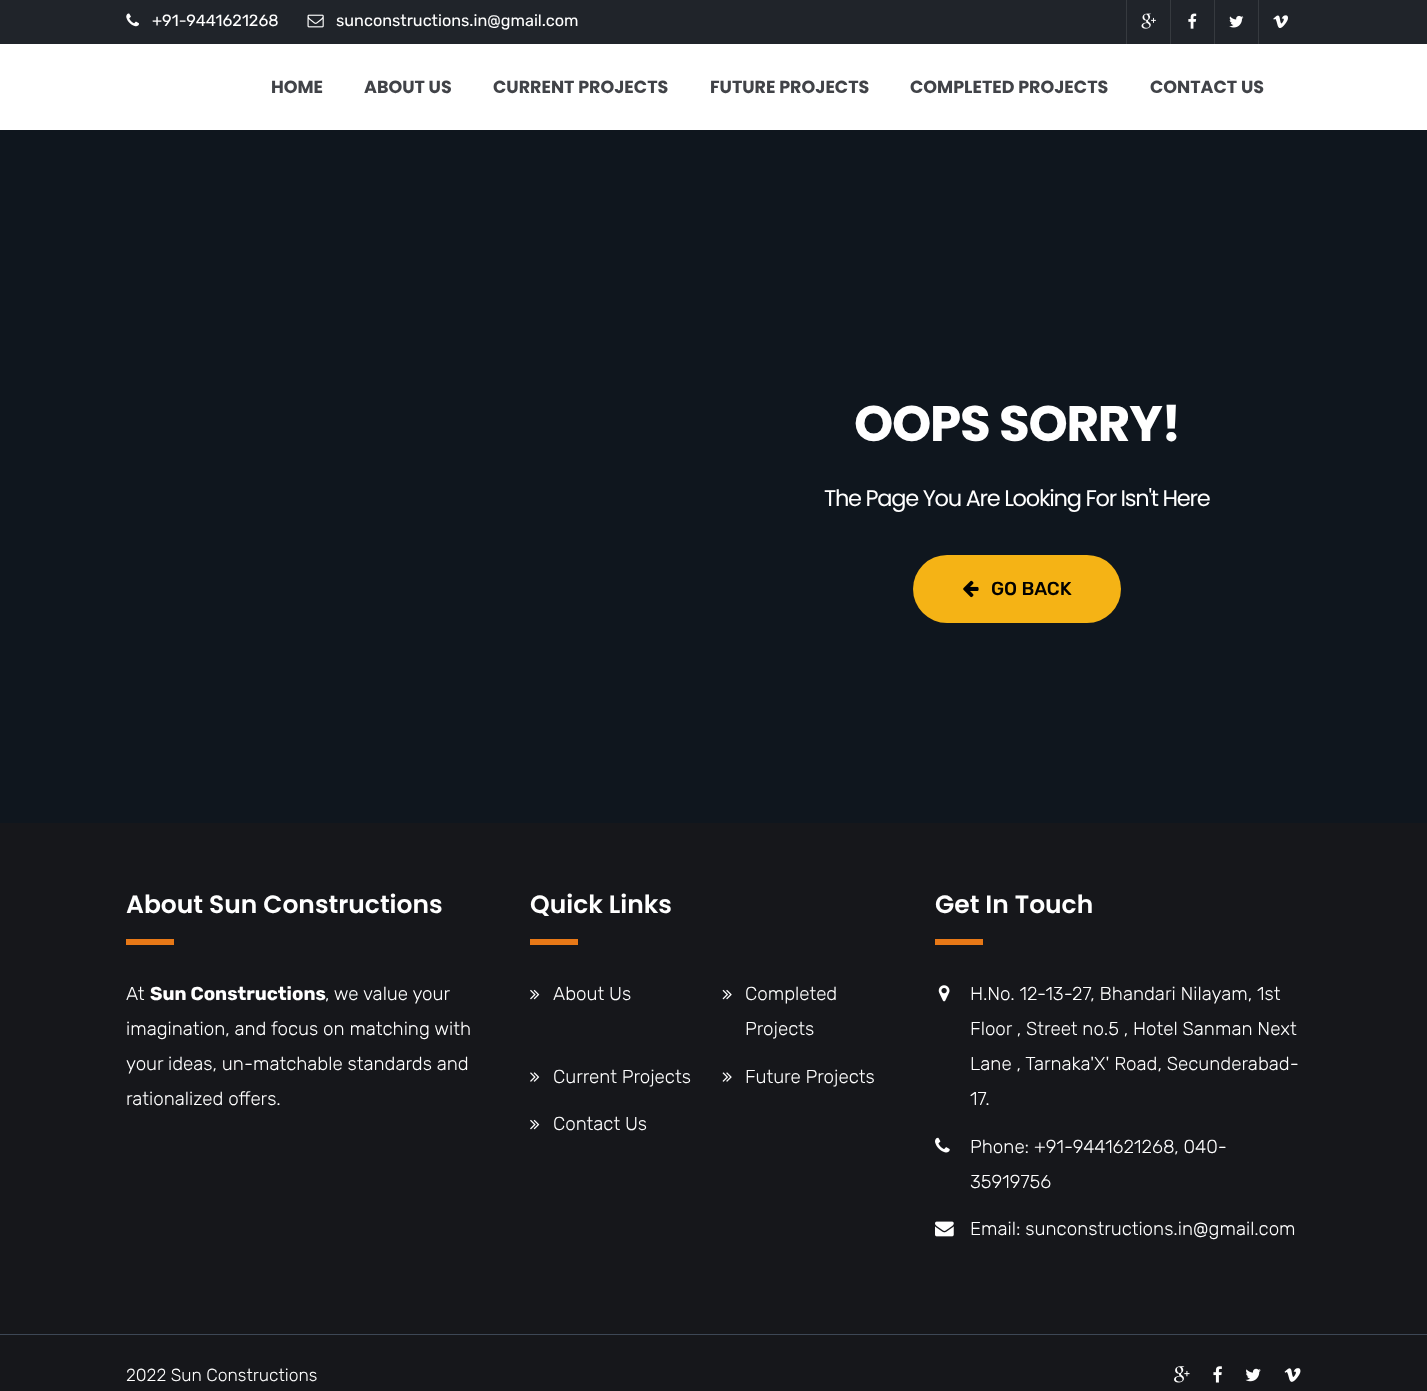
<svg xmlns="http://www.w3.org/2000/svg" width="1427" height="1391">
<style>
.a{font:16.25px Rubik;fill:#fff}
.b{font:bold 17.5px Poppins;fill:#414348}
.c{font:bold 50px Poppins;letter-spacing:-1.25px;fill:#fff}
.d{font:22.5px Poppins;letter-spacing:-1.25px;fill:#fff}
.e{font:500 18.75px Rubik;fill:#010101}
.f{font:600 25px Poppins;fill:#fff}
.g{font:300 18.75px Rubik;fill:#fff}
.h{font:bold 18.75px Rubik;fill:#fff}
.i{font:300 17.5px Rubik;fill:#fff}
</style>
<rect width="100%" height="100%" fill="#fff"/>
<path fill="#20242a" d="M0 0h1427v44H0z"/>
<image href="1.png" x="126" y="13" width="13" height="14"/>
<image href="2.png" x="307" y="14" width="17" height="14"/>
<path fill="#363a3f" d="M1126 0h1v44H1126z"/>
<image href="3.png" x="1141" y="13" width="15" height="16"/>
<path fill="#363a3f" d="M1170 0h1v44H1170z"/>
<image href="4.png" x="1188" y="13" width="9" height="16"/>
<path fill="#363a3f" d="M1214 0h1v44H1214z"/>
<image href="5.png" x="1229" y="15" width="15" height="13"/>
<path fill="#363a3f" d="M1258 0h1v44H1258z"/>
<image href="6.png" x="1273" y="15" width="15" height="13"/>
<path fill="#0f161e" d="M0 130h1427v693H0z"/>
<rect fill="#f5b315" x="913" y="555" width="208" height="68" rx="34"/>
<image href="7.png" x="963" y="580" width="16" height="18"/>
<path fill="#16171b" d="M0 823h1427v568H0z"/>
<path fill="#3d4755" d="M0 1334h1427v1H0z"/>
<path fill="#e77817" d="M126 939h48v6H126z"/>
<path fill="#e77817" d="M530 939h48v6H530z"/>
<image href="8.png" x="530" y="989" width="10" height="11"/>
<image href="9.png" x="722" y="989" width="10" height="11"/>
<image href="10.png" x="530" y="1072" width="10" height="10"/>
<image href="11.png" x="722" y="1072" width="10" height="10"/>
<image href="8.png" x="530" y="1119" width="10" height="11"/>
<path fill="#e77817" d="M935 939h48v6H935z"/>
<image href="12.png" x="938" y="985" width="12" height="17"/>
<image href="13.png" x="935" y="1137" width="15" height="16"/>
<image href="14.png" x="935" y="1221" width="19" height="16"/>
<image href="15.png" x="1174" y="1366" width="16" height="17"/>
<image href="16.png" x="1213" y="1366" width="9" height="17"/>
<image href="17.png" x="1245" y="1368" width="16" height="14"/>
<image href="18.png" x="1284" y="1368" width="17" height="14"/>
<text class="a" x="152" y="26">+91-9441621268</text>
<text class="a" x="336" y="26">sunconstructions.in@gmail.com</text>
<text class="b" x="271" y="93">HOME</text>
<text class="b" x="364" y="93">ABOUT US</text>
<text class="b" x="493" y="93">CURRENT PROJECTS</text>
<text class="b" x="710" y="93">FUTURE PROJECTS</text>
<text class="b" x="910" y="93">COMPLETED PROJECTS</text>
<text class="b" x="1150" y="93">CONTACT US</text>
<text class="c" x="854" y="441">OOPS SORRY!</text>
<text class="d" x="824" y="506">The Page You Are Looking For Isn't Here</text>
<text class="e" x="991" y="595">GO BACK</text>
<text class="f" x="126" y="913">About Sun Constructions</text>
<text class="g" x="126" y="1000">At</text>
<text class="h" x="150" y="1000">Sun Constructions</text>
<text class="g" x="325" y="1000">, we value your</text>
<text class="g" x="126" y="1035">imagination, and focus on matching with</text>
<text class="g" x="126" y="1070">your ideas, un-matchable standards and</text>
<text class="g" x="126" y="1105">rationalized offers.</text>
<text class="f" x="530" y="913">Quick Links</text>
<text class="g" x="553" y="1000">About Us</text>
<text class="g" x="745" y="1000">Completed</text>
<text class="g" x="745" y="1035">Projects</text>
<text class="g" x="553" y="1083">Current Projects</text>
<text class="g" x="745" y="1083">Future Projects</text>
<text class="g" x="553" y="1130">Contact Us</text>
<text class="f" x="935" y="913">Get In Touch</text>
<text class="g" x="970" y="1000">H.No. 12-13-27, Bhandari Nilayam, 1st</text>
<text class="g" x="970" y="1035">Floor , Street no.5 , Hotel Sanman Next</text>
<text class="g" x="970" y="1070">Lane , Tarnaka'X' Road, Secunderabad-</text>
<text class="g" x="970" y="1105">17.</text>
<text class="g" x="970" y="1153">Phone: +91-9441621268, 040-</text>
<text class="g" x="970" y="1188">35919756</text>
<text class="g" x="970" y="1235">Email: sunconstructions.in@gmail.com</text>
<text class="i" x="126" y="1381">2022 Sun Constructions</text>
</svg>
